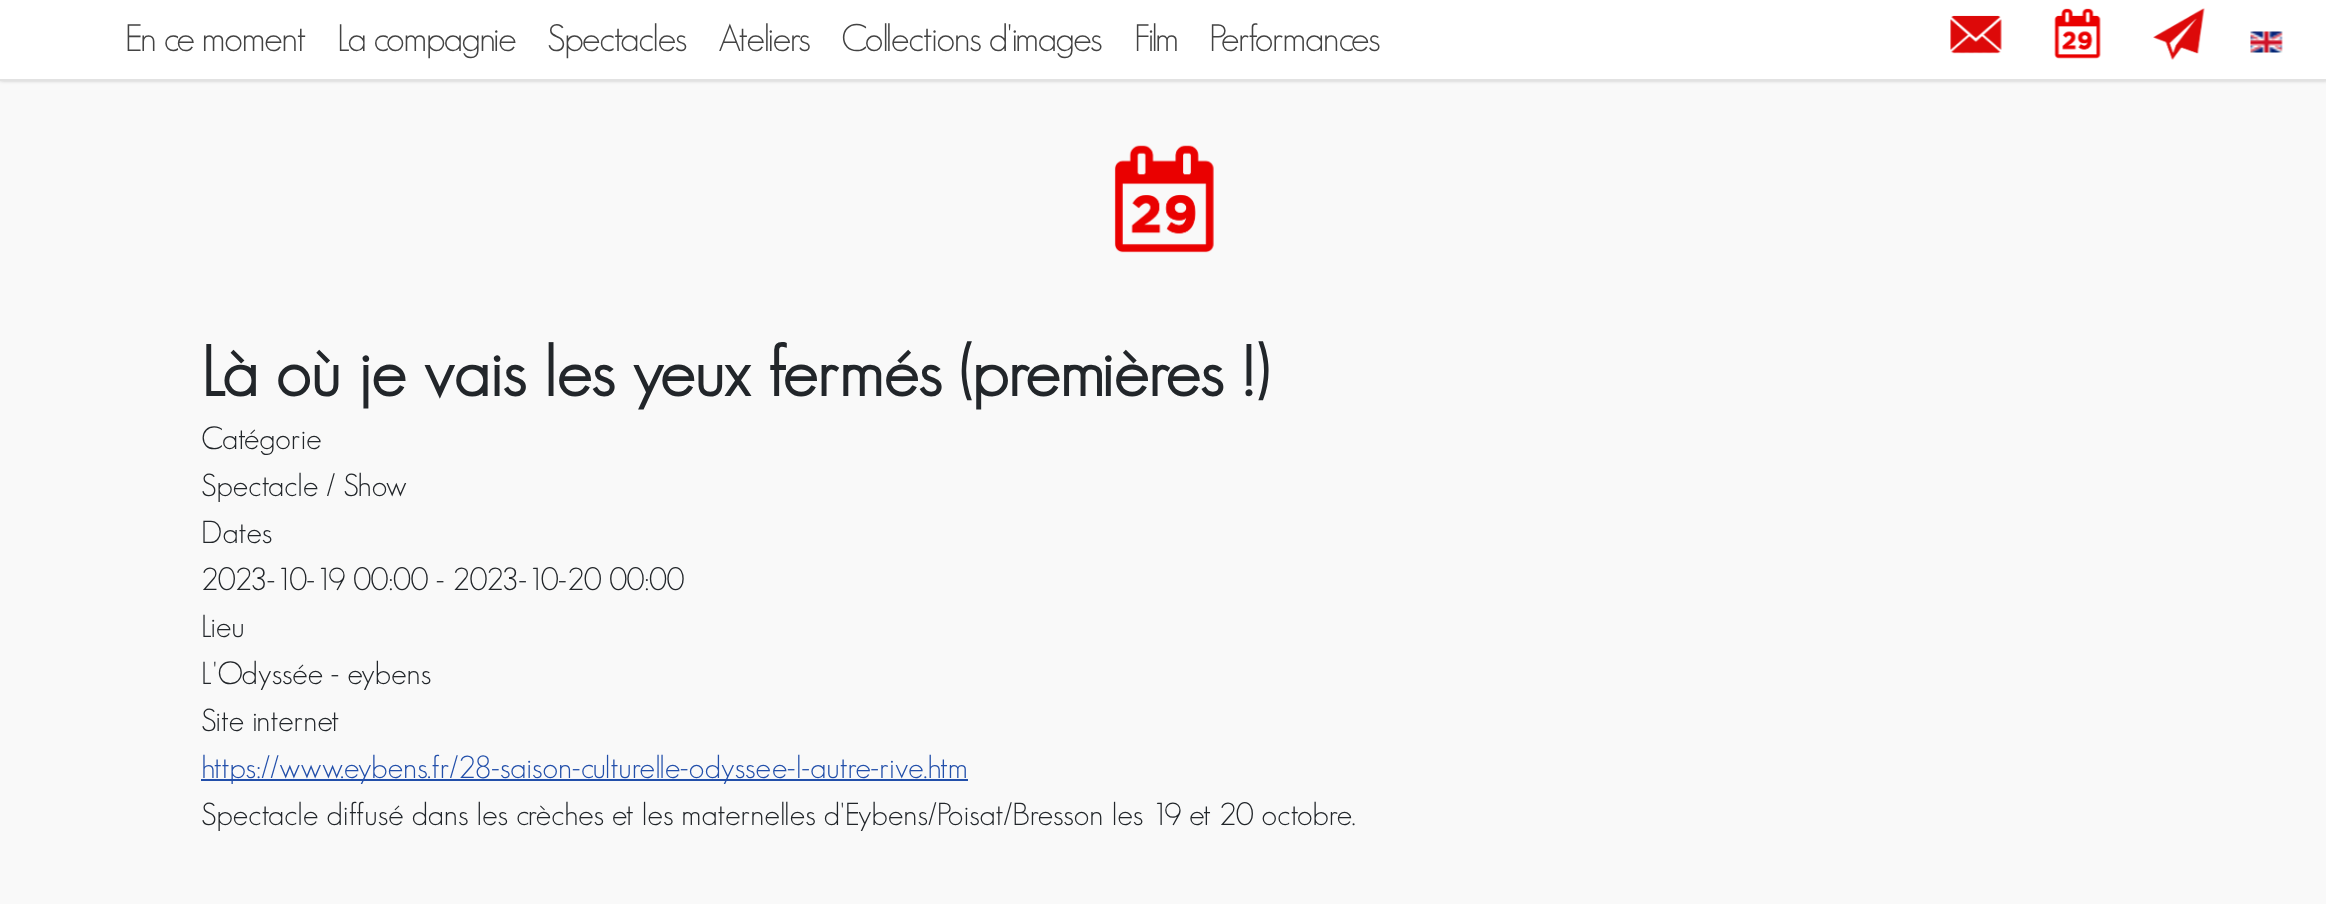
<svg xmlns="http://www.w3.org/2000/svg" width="2326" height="904">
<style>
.a{font:300 37.5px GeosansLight;letter-spacing:-1.4px;fill:#434343}
.b{font:bold 70px GeosansLight;fill:#22262a}
.c{font:300 31.35px GeosansLight;fill:#22262a}
.d{font:300 31.35px GeosansLight;fill:#224faa}
</style>
<rect width="100%" height="100%" fill="#f9f9f9"/>
<path fill="#00000080" filter="blur(2.5px)" d="M0 -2h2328v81H0z"/>
<path fill="#fff" d="M0 0h2326v79H0z"/>
<path fill="#e2e2e2" d="M0 79h2326v2H0z"/>
<image href="1.png" x="1950" y="15" width="52" height="39"/>
<image href="2.png" x="2054" y="8" width="47" height="51"/>
<image href="3.png" x="2153" y="8" width="52" height="52"/>
<image href="4.png" x="2250" y="31" width="33" height="22"/>
<image href="5.png" x="1114" y="145" width="100" height="108"/>
<path fill="#224faa" d="M201 779h767v2H201z"/>
<text class="a" x="125" y="51">En ce moment</text>
<text class="a" x="337" y="51">La compagnie</text>
<text class="a" x="547" y="51">Spectacles</text>
<text class="a" x="718" y="51">Ateliers</text>
<text class="a" x="841" y="51">Collections d'images</text>
<text class="a" x="1134" y="51">Film</text>
<text class="a" x="1209" y="51">Performances</text>
<text class="b" x="201" y="396">Là où je vais les yeux fermés (premières !)</text>
<text class="c" x="201" y="449">Catégorie</text>
<text class="c" x="201" y="496">Spectacle / Show</text>
<text class="c" x="201" y="543">Dates</text>
<text class="c" x="201" y="590">2023-10-19 00:00 - 2023-10-20 00:00</text>
<text class="c" x="201" y="637">Lieu</text>
<text class="c" x="201" y="684">L'Odyssée - eybens</text>
<text class="c" x="201" y="731">Site internet</text>
<text class="d" x="201" y="778">https://www.eybens.fr/28-saison-culturelle-odyssee-l-autre-rive.htm</text>
<text class="c" x="201" y="825">Spectacle diffusé dans les crèches et les maternelles d'Eybens/Poisat/Bresson les 19 et 20 octobre.</text>
</svg>
